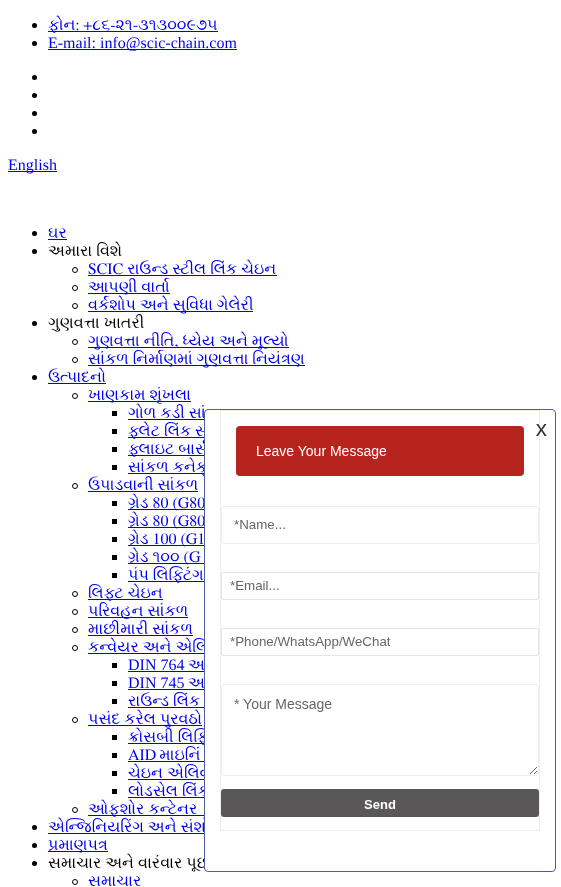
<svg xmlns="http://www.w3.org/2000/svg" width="561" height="887">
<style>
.a{font:16px FreeSerif;fill:#00e}
.b{font:16px Liberation Serif;fill:#00e}
.c{font:16px FreeSerif;fill:#000}
</style>
<rect width="100%" height="100%" fill="#fff"/>
<circle fill="#000" cx="34.5" cy="25.5" r="2.5"/>
<path fill="#00e" d="M48 31h170v1H48z"/>
<circle fill="#000" cx="34.5" cy="43.5" r="2.5"/>
<path fill="#00e" d="M48 49h189v1H48z"/>
<circle fill="#000" cx="34.5" cy="77.5" r="2.5"/>
<circle fill="#000" cx="34.5" cy="95.5" r="2.5"/>
<circle fill="#000" cx="34.5" cy="113.5" r="2.5"/>
<circle fill="#000" cx="34.5" cy="131.5" r="2.5"/>
<path fill="#00e" d="M8 171h49v1H8z"/>
<circle fill="#000" cx="34.5" cy="233.5" r="2.5"/>
<path fill="#00e" d="M48 239h19v1H48z"/>
<circle fill="#000" cx="34.5" cy="251.5" r="2.5"/>
<circle fill="none" stroke="#000" cx="75" cy="270" r="2.5"/>
<path fill="#00e" d="M88 275h189v1H88z"/>
<circle fill="none" stroke="#000" cx="75" cy="288" r="2.5"/>
<path fill="#00e" d="M88 293h82v1H88z"/>
<circle fill="none" stroke="#000" cx="75" cy="306" r="2.5"/>
<path fill="#00e" d="M88 311h165v1H88z"/>
<circle fill="#000" cx="34.5" cy="323.5" r="2.5"/>
<circle fill="none" stroke="#000" cx="75" cy="342" r="2.5"/>
<path fill="#00e" d="M88 347h201v1H88z"/>
<circle fill="none" stroke="#000" cx="75" cy="360" r="2.5"/>
<path fill="#00e" d="M88 365h217v1H88z"/>
<circle fill="#000" cx="34.5" cy="377.5" r="2.5"/>
<path fill="#00e" d="M48 383h58v1H48z"/>
<circle fill="none" stroke="#000" cx="75" cy="396" r="2.5"/>
<path fill="#00e" d="M88 401h103v1H88z"/>
<path fill="#000" d="M112 411h5v5H112z"/>
<path fill="#00e" d="M128 419h76v1H128z"/>
<path fill="#000" d="M112 429h5v5H112z"/>
<path fill="#00e" d="M128 437h76v1H128z"/>
<path fill="#000" d="M112 447h5v5H112z"/>
<path fill="#00e" d="M128 455h80v1H128z"/>
<path fill="#000" d="M112 465h5v5H112z"/>
<path fill="#00e" d="M128 473h76v1H128z"/>
<circle fill="none" stroke="#000" cx="75" cy="486" r="2.5"/>
<path fill="#00e" d="M88 491h110v1H88z"/>
<path fill="#000" d="M112 501h5v5H112z"/>
<path fill="#00e" d="M128 509h76v1H128z"/>
<path fill="#000" d="M112 519h5v5H112z"/>
<path fill="#00e" d="M128 527h76v1H128z"/>
<path fill="#000" d="M112 537h5v5H112z"/>
<path fill="#00e" d="M128 545h76v1H128z"/>
<path fill="#000" d="M112 555h5v5H112z"/>
<path fill="#00e" d="M128 563h76v1H128z"/>
<path fill="#000" d="M112 573h5v5H112z"/>
<path fill="#00e" d="M128 581h76v1H128z"/>
<circle fill="none" stroke="#000" cx="75" cy="594" r="2.5"/>
<path fill="#00e" d="M88 599h75v1H88z"/>
<circle fill="none" stroke="#000" cx="75" cy="612" r="2.5"/>
<path fill="#00e" d="M88 617h100v1H88z"/>
<circle fill="none" stroke="#000" cx="75" cy="630" r="2.5"/>
<path fill="#00e" d="M88 635h105v1H88z"/>
<circle fill="none" stroke="#000" cx="75" cy="648" r="2.5"/>
<path fill="#00e" d="M88 653h116v1H88z"/>
<path fill="#000" d="M112 663h5v5H112z"/>
<path fill="#00e" d="M128 671h76v1H128z"/>
<path fill="#000" d="M112 681h5v5H112z"/>
<path fill="#00e" d="M128 689h76v1H128z"/>
<path fill="#000" d="M112 699h5v5H112z"/>
<path fill="#00e" d="M128 707h76v1H128z"/>
<circle fill="none" stroke="#000" cx="75" cy="720" r="2.5"/>
<path fill="#00e" d="M88 725h114v1H88z"/>
<path fill="#000" d="M112 735h5v5H112z"/>
<path fill="#00e" d="M128 743h76v1H128z"/>
<path fill="#000" d="M112 753h5v5H112z"/>
<path fill="#00e" d="M128 761h76v1H128z"/>
<path fill="#000" d="M112 771h5v5H112z"/>
<path fill="#00e" d="M128 779h76v1H128z"/>
<path fill="#000" d="M112 789h5v5H112z"/>
<path fill="#00e" d="M128 797h76v1H128z"/>
<circle fill="none" stroke="#000" cx="75" cy="810" r="2.5"/>
<path fill="#00e" d="M88 815h116v1H88z"/>
<circle fill="#000" cx="34.5" cy="827.5" r="2.5"/>
<path fill="#00e" d="M48 833h156v1H48z"/>
<circle fill="#000" cx="34.5" cy="845.5" r="2.5"/>
<path fill="#00e" d="M48 851h60v1H48z"/>
<circle fill="#000" cx="34.5" cy="863.5" r="2.5"/>
<circle fill="none" stroke="#000" cx="75" cy="882" r="2.5"/>
<text class="a" x="48" y="30">ફોન: +૮૬-૨૧-૩૧૩૦૦૯૭૫</text>
<text class="b" x="48" y="48">E-mail: info@scic-chain.com</text>
<text class="b" x="8" y="170">English</text>
<text class="a" x="48" y="238">ઘર</text>
<text class="c" x="48" y="256">અમારા વિશે</text>
<text class="a" x="88" y="274">SCIC રાઉન્ડ સ્ટીલ લિંક ચેઇન</text>
<text class="a" x="88" y="292">આપણી વાર્તા</text>
<text class="a" x="88" y="310">વર્કશોપ અને સુવિધા ગેલેરી</text>
<text class="c" x="48" y="328">ગુણવત્તા ખાતરી</text>
<text class="a" x="88" y="346">ગુણવત્તા નીતિ, ધ્યેય અને મૂલ્યો</text>
<text class="a" x="88" y="364">સાંકળ નિર્માણમાં ગુણવત્તા નિયંત્રણ</text>
<text class="a" x="48" y="382">ઉત્પાદનો</text>
<text class="a" x="88" y="400">ખાણકામ શૃંખલા</text>
<text class="a" x="128" y="418">ગોળ કડી સાં</text>
<text class="a" x="128" y="436">ફ્લેટ લિંક સ</text>
<text class="a" x="128" y="454">ફ્લાઇટ બાર્સ</text>
<text class="a" x="128" y="472">સાંકળ કનેક્</text>
<text class="a" x="88" y="490">ઉપાડવાની સાંકળ</text>
<text class="a" x="128" y="508">ગ્રેડ 80 (G80</text>
<text class="a" x="128" y="526">ગ્રેડ 80 (G80</text>
<text class="a" x="128" y="544">ગ્રેડ 100 (G1</text>
<text class="a" x="128" y="562">ગ્રેડ ૧૦૦ (G</text>
<text class="a" x="128" y="580">પંપ લિફ્ટિંગ</text>
<text class="a" x="88" y="598">લિફ્ટ ચેઇન</text>
<text class="a" x="88" y="616">પરિવહન સાંકળ</text>
<text class="a" x="88" y="634">માછીમારી સાંકળ</text>
<text class="a" x="88" y="652">કન્વેયર અને એલિ</text>
<text class="b" x="128" y="670">DIN 764</text>
<text class="a" x="188" y="670">અ</text>
<text class="b" x="128" y="688">DIN 745</text>
<text class="a" x="188" y="688">અ</text>
<text class="a" x="128" y="706">રાઉન્ડ લિંક</text>
<text class="a" x="88" y="724">પસંદ કરેલ પુરવઠો</text>
<text class="a" x="128" y="742">ક્રોસબી લિફ્ટિં</text>
<text class="a" x="128" y="760" word-spacing="-1">AID માઇનિં</text>
<text class="a" x="128" y="778">ચેઇન એલિવ</text>
<text class="a" x="128" y="796">લોડસેલ લિંક</text>
<text class="a" x="88" y="814">ઓફશોર કન્ટેનર</text>
<text class="a" x="48" y="832">એન્જિનિયરિંગ અને સંશો</text>
<text class="a" x="48" y="850">પ્રમાણપત્ર</text>
<text class="c" x="48" y="868">સમાચાર અને વારંવાર પૂછ</text>
<text class="a" x="88" y="886">સમાચાર</text>
<image href="1.png" x="204" y="409" width="352" height="463"/>
</svg>
